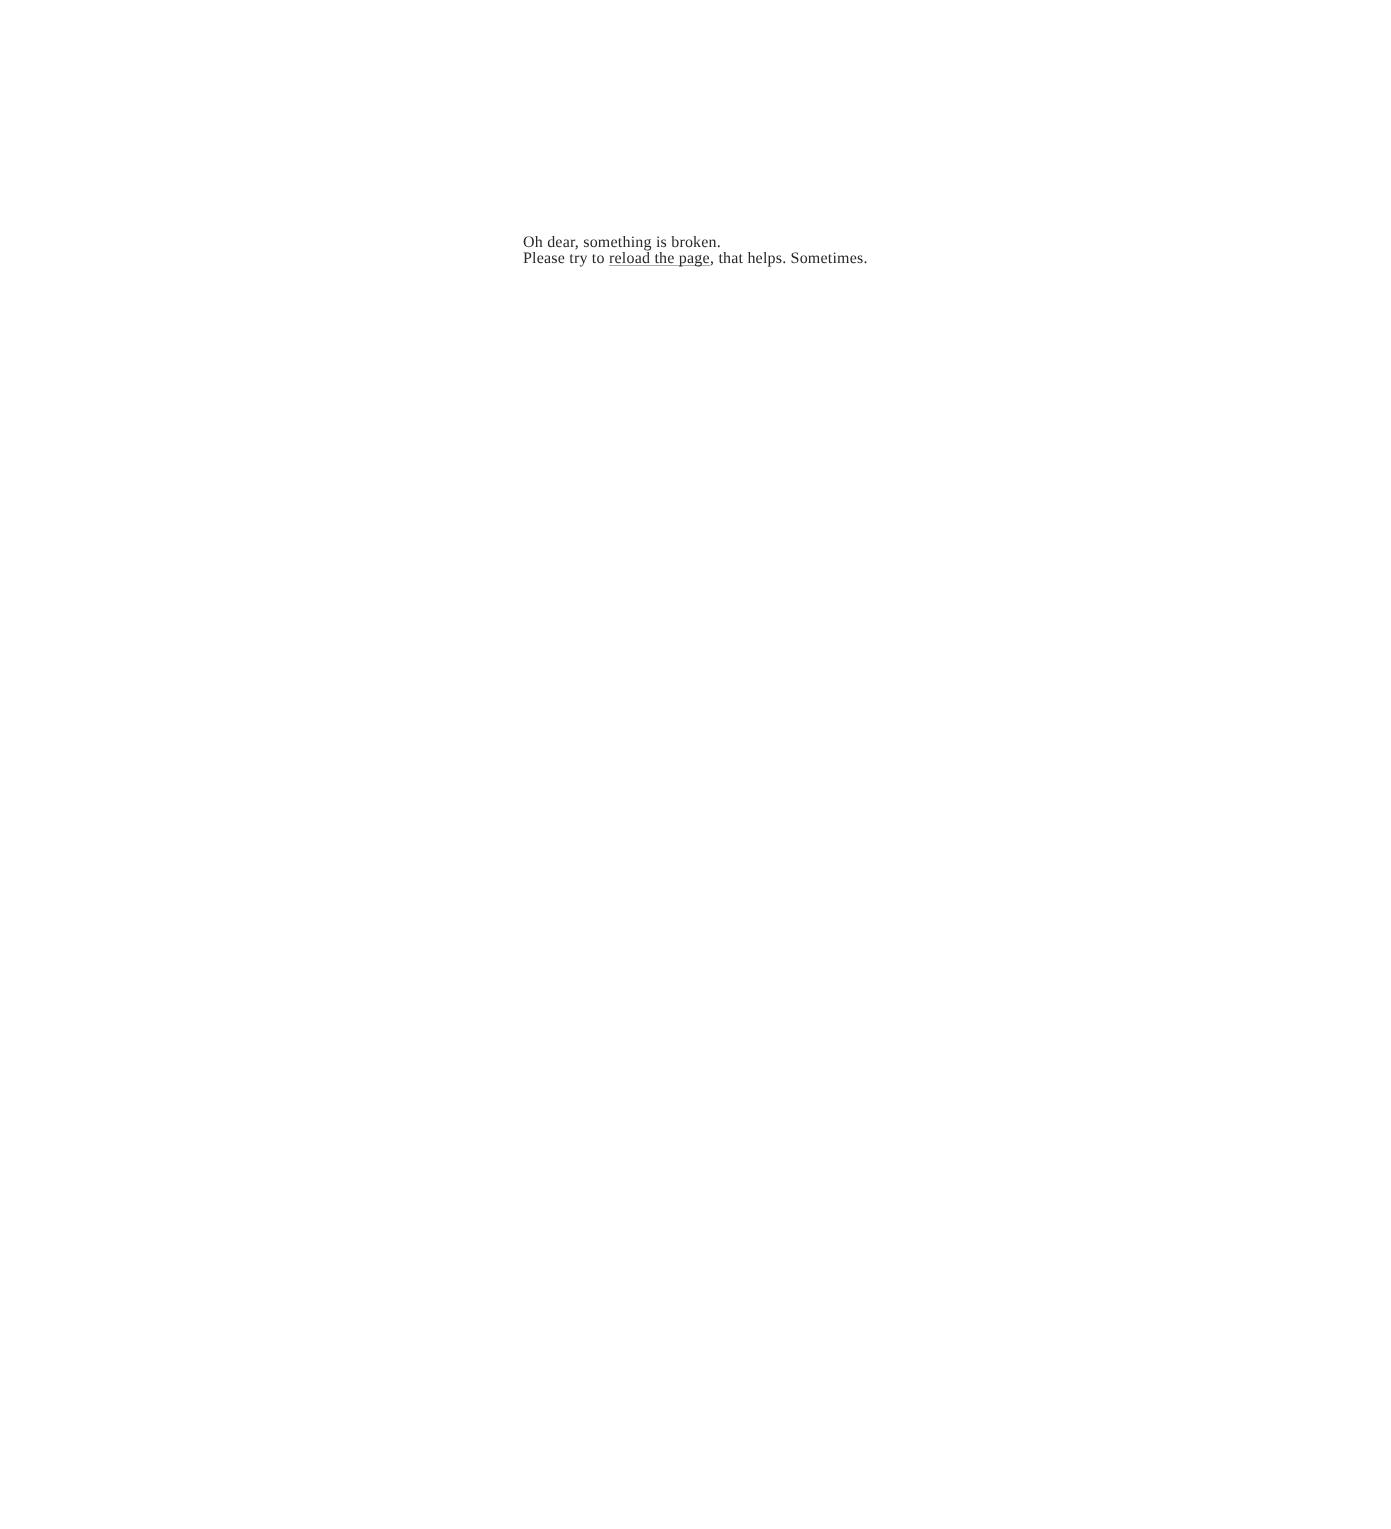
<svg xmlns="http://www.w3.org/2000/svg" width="1391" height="1529">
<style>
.a{font:16px Liberation Serif;letter-spacing:0.2px;fill:#282828}
</style>
<rect width="100%" height="100%" fill="#fff"/>
<path fill="#aaa" d="M609 265h101v1H609z"/>
<text class="a" x="523" y="247">Oh dear, something is broken.</text>
<text class="a" x="523" y="263">Please try to</text>
<text class="a" x="609" y="263">reload the page</text>
<text class="a" x="710" y="263">, that helps. Sometimes.</text>
</svg>
